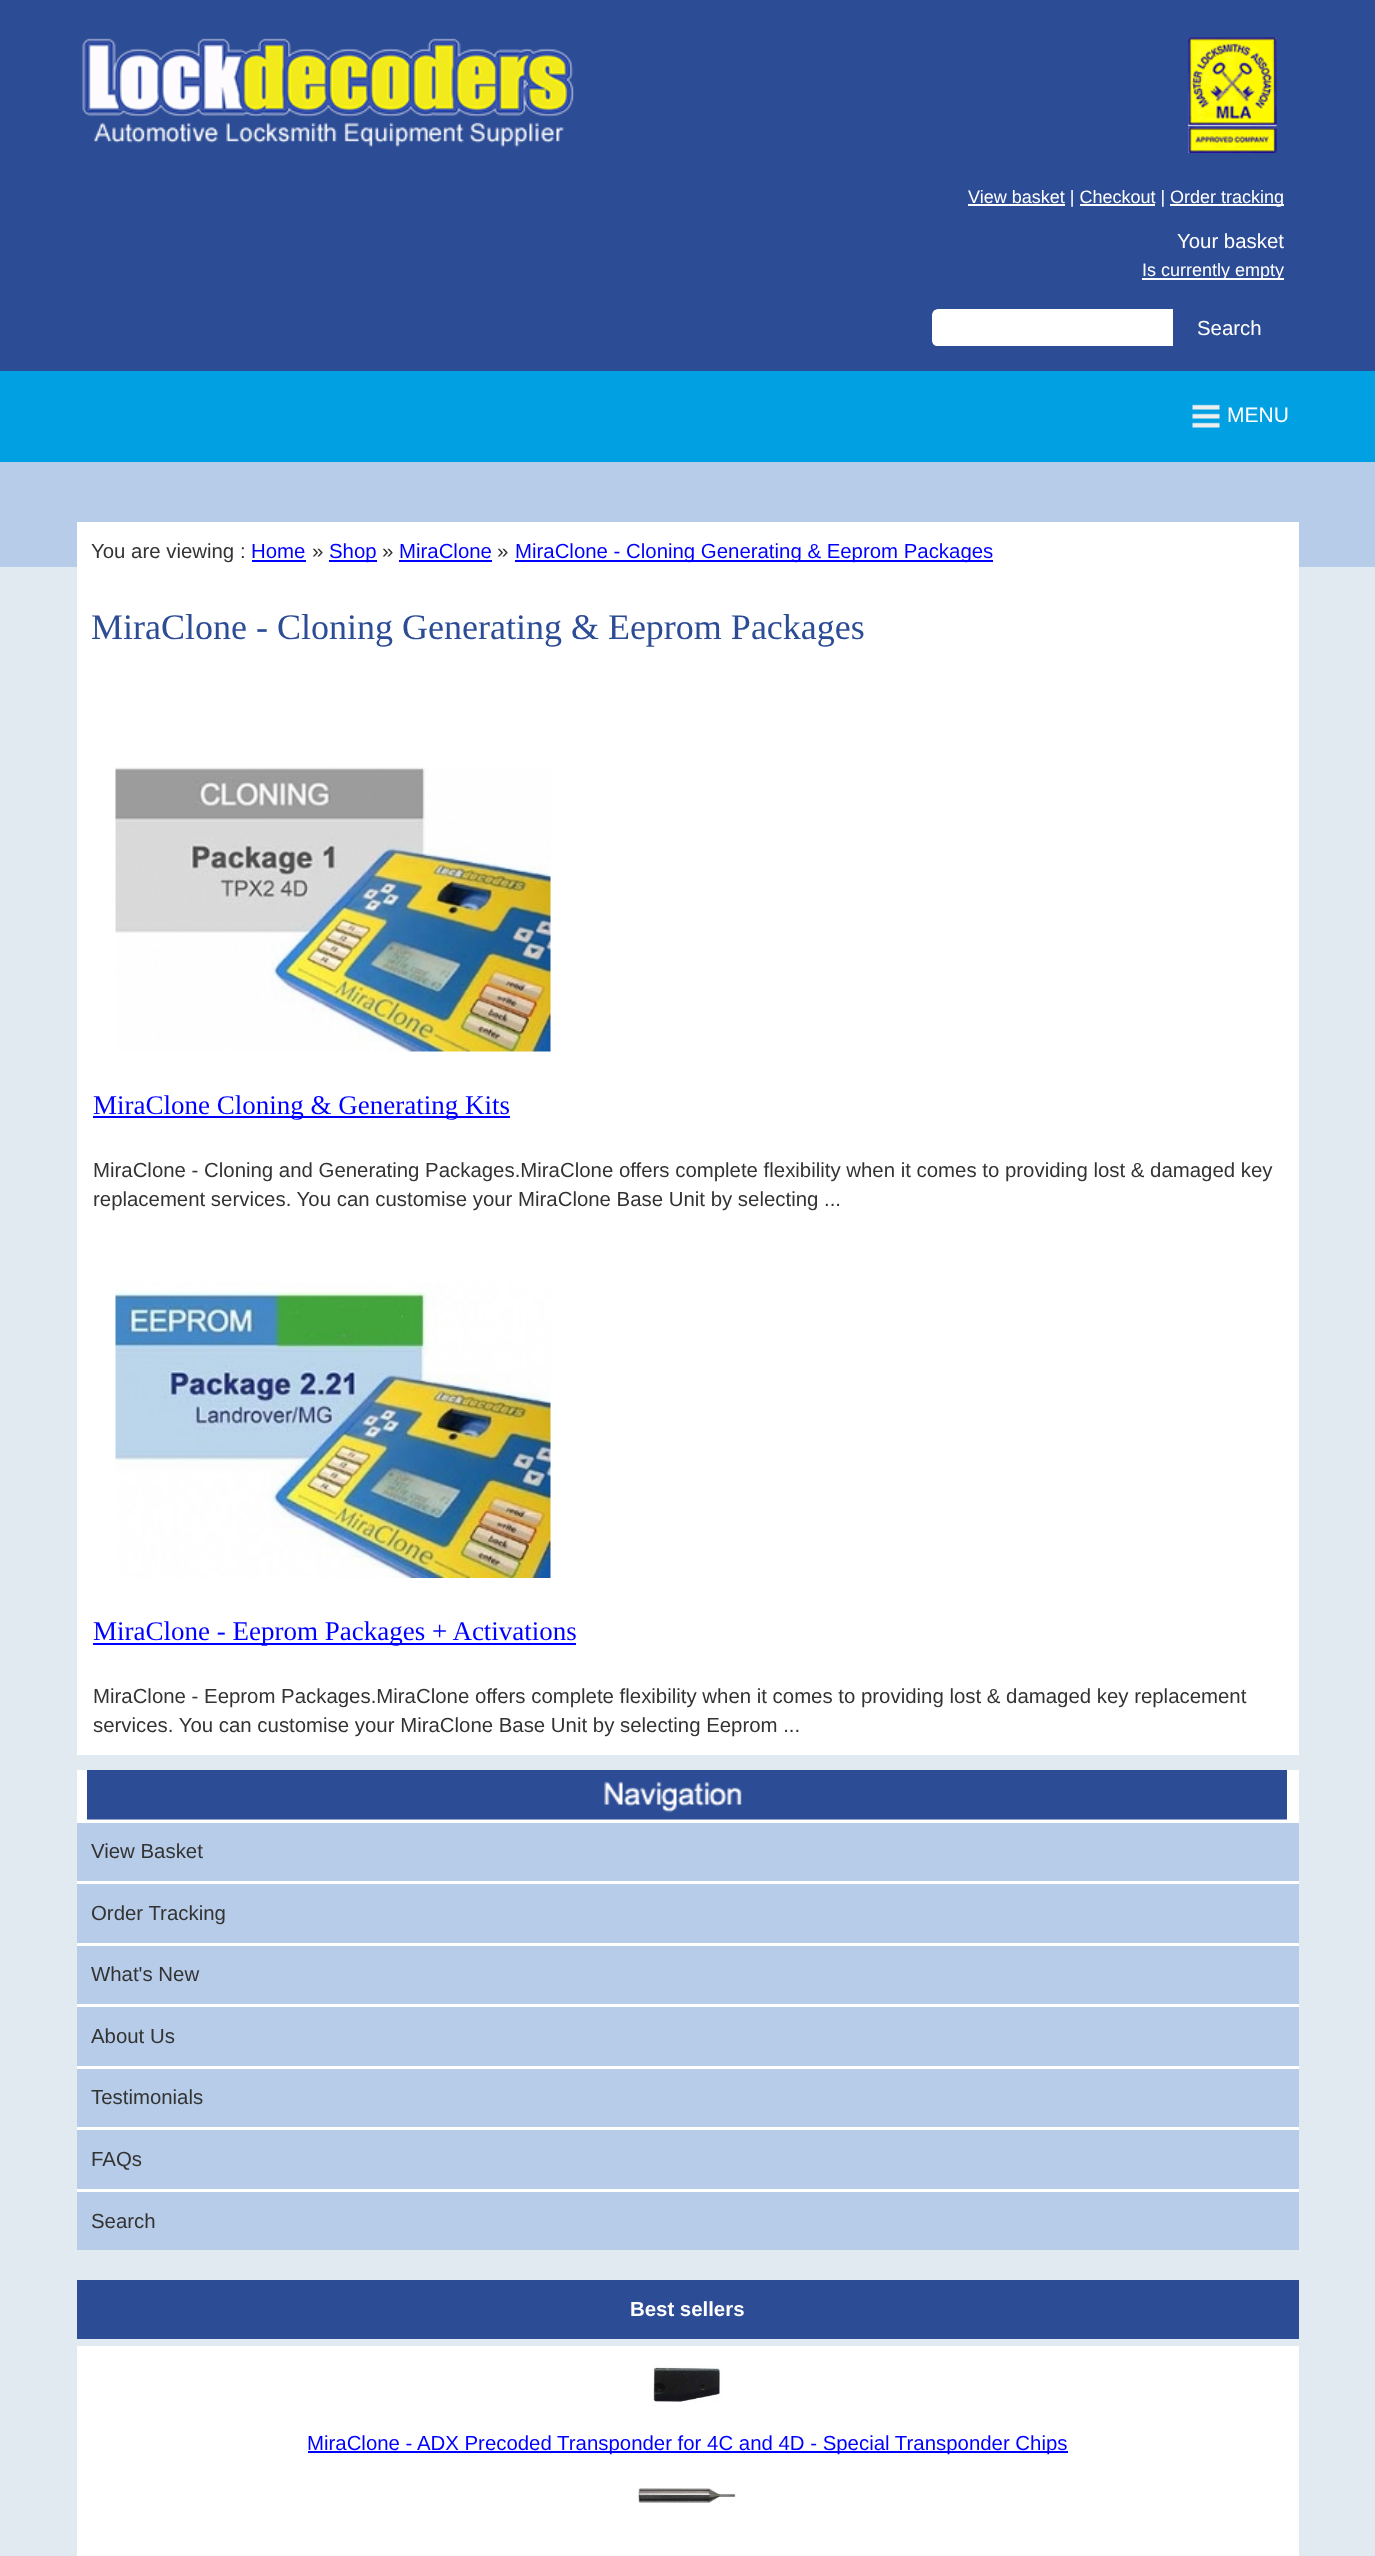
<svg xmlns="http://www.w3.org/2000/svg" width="1375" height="2556">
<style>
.a{font:18px Liberation Sans;fill:#fff}
.b{font:20.4px Liberation Sans;fill:#fff}
.c{font:21px Liberation Sans;fill:#fff}
.d{font:20.4px Liberation Sans;fill:#333}
.e{font:20.4px Liberation Sans;fill:#00f}
.f{font:36px Liberation Serif;fill:#2c4c95}
.g{font:27px Liberation Serif;fill:#00f}
.h{font:bold 20.4px Liberation Sans;fill:#fff}
</style>
<rect width="100%" height="100%" fill="#e1eaf0"/>
<path fill="#2c4c95" d="M0 0h1375v371H0z"/>
<image href="1.png" x="82" y="38" width="492" height="110"/>
<image href="2.png" x="1188" y="37" width="89" height="116"/>
<path fill="#fff" d="M968 204h97v2H968z"/>
<path fill="#fff" d="M1170 204h114v2H1170z"/>
<path fill="#fff" d="M1080 204h75v2H1080z"/>
<path fill="#fff" d="M1142 278h142v2H1142z"/>
<path fill="#fff" d="M938 309h235v38h-235c-3.5 0-6-2.5-6-6v-26c0-3.5 2.5-6 6-6z"/>
<path fill="#2c4c95" fill-rule="evenodd" d="M938 308h235v40h-235c-5 0-8-3-8-8v-25c0-4 3-7 8-7zm0 1h235v37h-235c-4 0-6-2-6-6v-25c0-3 2-6 6-6z"/>
<path fill="#01a0e2" d="M0 371h1375v91H0z"/>
<image href="3.png" x="1192" y="404" width="28" height="24"/>
<path fill="#b7cce9" d="M0 462h1375v105H0z"/>
<path fill="#fff" d="M77 522h1222v1233H77z"/>
<path fill="#00f" d="M252 560h54v2H252z"/>
<path fill="#00f" d="M329 560h48v2H329z"/>
<path fill="#00f" d="M399 560h93v2H399z"/>
<path fill="#00f" d="M515 560h478v2H515z"/>
<image href="4.png" x="115" y="767" width="436" height="285"/>
<path fill="#00f" d="M93 1116h417v2H93z"/>
<image href="5.png" x="115" y="1282" width="436" height="296"/>
<path fill="#00f" d="M93 1643h483v2H93z"/>
<path fill="#fff" d="M77 1770h1222v422H77z"/>
<image href="6.png" x="87" y="1770" width="1200" height="50"/>
<path fill="#b7cce9" d="M77 1823h1222v58H77z"/>
<path fill="#b7cce9" d="M77 1884h1222v59H77z"/>
<path fill="#b7cce9" d="M77 1946h1222v58H77z"/>
<path fill="#b7cce9" d="M77 2007h1222v59H77z"/>
<path fill="#b7cce9" d="M77 2069h1222v58H77z"/>
<path fill="#b7cce9" d="M77 2130h1222v59H77z"/>
<path fill="#b7cce9" d="M77 2192h1222v58H77z"/>
<path fill="#2c4c95" d="M77 2280h1222v59H77z"/>
<path fill="#fff" d="M77 2346h1222v210H77z"/>
<image href="7.png" x="653" y="2365" width="71" height="37"/>
<path fill="#00f" d="M308 2451h760v2H308z"/>
<image href="8.png" x="638" y="2488" width="98" height="15"/>
<text class="a" x="968" y="203">View basket | Checkout |</text>
<text class="a" x="1170" y="203">Order tracking</text>
<text class="b" x="1177" y="248">Your basket</text>
<text class="a" x="1142" y="276">Is currently empty</text>
<text class="b" x="1197" y="335">Search</text>
<text class="c" x="1227" y="422">MENU</text>
<text class="d" x="91" y="558">You are viewing :</text>
<text class="e" x="251" y="558">Home</text>
<text class="d" x="312" y="558">»</text>
<text class="e" x="329" y="558">Shop</text>
<text class="d" x="382" y="558">»</text>
<text class="e" x="399" y="558">MiraClone</text>
<text class="d" x="497" y="558">»</text>
<text class="e" x="515" y="558">MiraClone - Cloning Generating &amp; Eeprom Packages</text>
<text class="f" x="91" y="639">MiraClone - Cloning Generating &amp; Eeprom Packages</text>
<text class="g" x="93" y="1114">MiraClone Cloning &amp; Generating Kits</text>
<text class="d" x="93" y="1177">MiraClone - Cloning and Generating Packages.MiraClone offers complete flexibility when it comes to providing lost &amp; damaged key</text>
<text class="d" x="93" y="1206">replacement services. You can customise your MiraClone Base Unit by selecting ...</text>
<text class="g" x="93" y="1640">MiraClone - Eeprom Packages + Activations</text>
<text class="d" x="93" y="1703">MiraClone - Eeprom Packages.MiraClone offers complete flexibility when it comes to providing lost &amp; damaged key replacement</text>
<text class="d" x="93" y="1732">services. You can customise your MiraClone Base Unit by selecting Eeprom ...</text>
<text class="d" x="91" y="1858">View Basket</text>
<text class="d" x="91" y="1920">Order Tracking</text>
<text class="d" x="91" y="1981">What's New</text>
<text class="d" x="91" y="2043">About Us</text>
<text class="d" x="91" y="2104">Testimonials</text>
<text class="d" x="91" y="2166">FAQs</text>
<text class="d" x="91" y="2228">Search</text>
<text class="h" x="630" y="2316">Best sellers</text>
<text class="e" x="307" y="2450">MiraClone - ADX Precoded Transponder for 4C and 4D - Special Transponder Chips</text>
</svg>
